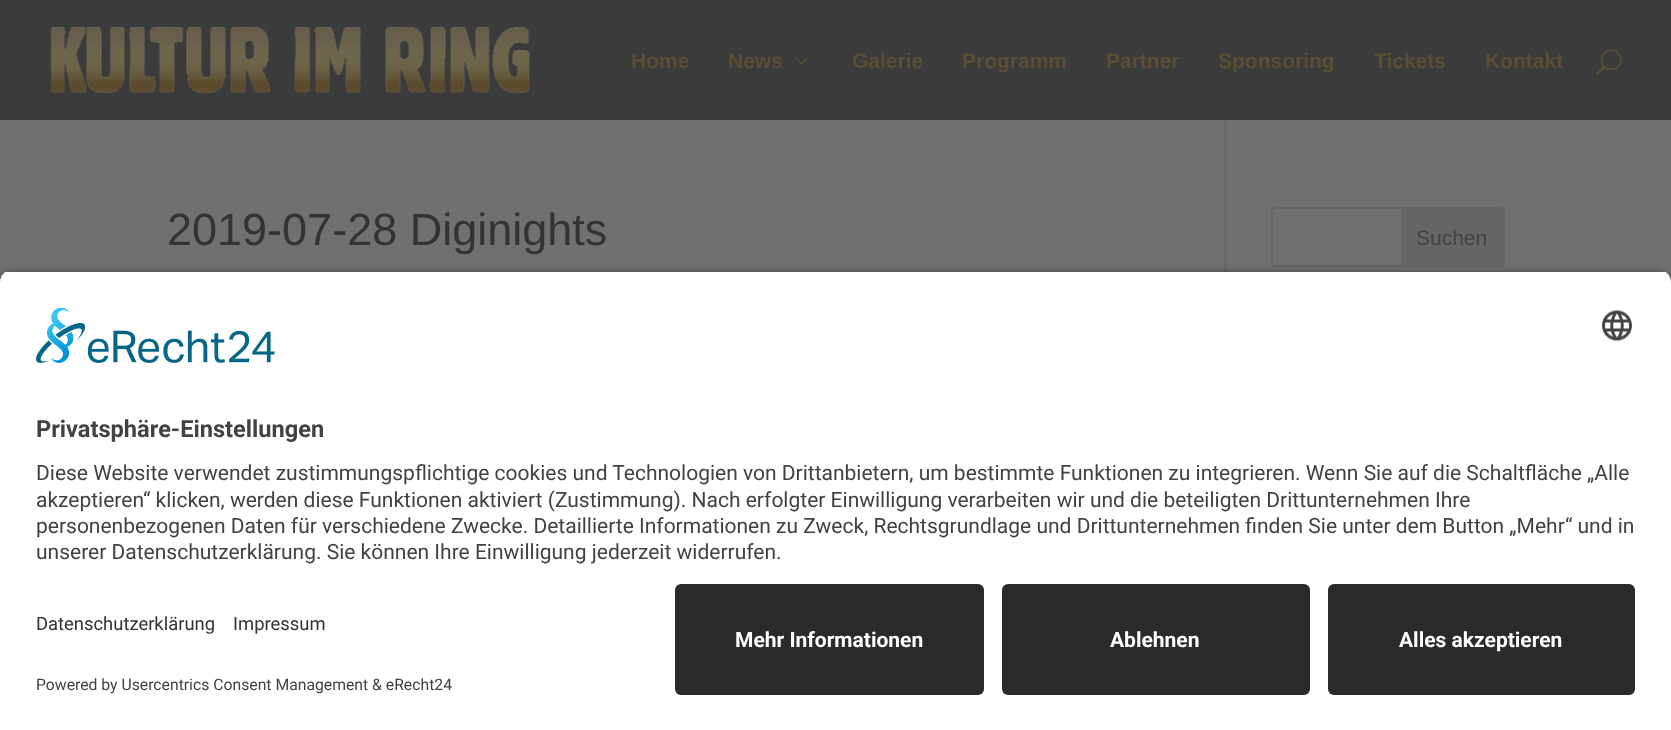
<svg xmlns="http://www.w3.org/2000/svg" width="1671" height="730">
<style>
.a{font:bold 21px Liberation Sans;fill:#5b4e35}
.b{font:45px Liberation Sans;fill:#333}
.c{font:21px Liberation Sans;fill:#424242}
.d{font:bold 23.6px Roboto;fill:#424242}
.e{font:21px Roboto;fill:#424242}
.f{font:18.4px Roboto;fill:#333}
.g{font:15.75px Roboto;fill:#424242}
.h{font:bold 21px Roboto;fill:#fff}
</style>
<defs>
<clipPath id="clip1"><path d="M12 270h1647c6.5 0 12 5.5 12 12v290h-1671v-290c0-6.5 5.5-12 12-12z"/></clipPath>
</defs>
<rect width="100%" height="100%" fill="#707070"/>
<path fill="#3b3b3b" d="M0 0h1671v120H0z"/>
<image href="1.png" x="50" y="27" width="480" height="66"/>
<image href="2.png" x="796" y="58" width="12" height="7"/>
<image href="3.png" x="1596" y="49" width="26" height="27"/>
<path fill="#686868" d="M1224 120h2v152H1224z"/>
<rect fill="none" stroke="#666" stroke-width="2" x="1272" y="208" width="232" height="58" rx="4"/>
<path fill="#666" d="M1401 207h99c3 0 5 2 5 5v50c0 3-2 5-5 5h-99z"/>
<rect fill="#000000cc" filter="blur(5px)" y="275" width="1671" height="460" rx="12"/>
<g clip-path="url(#clip1)">
<path fill="#fff" d="M0 272h1671v300H0z"/>
</g>
<image href="4.png" x="36" y="308" width="239" height="55"/>
<image href="5.png" x="1602" y="310" width="30" height="31"/>
<path fill="#fff" d="M0 572h1671v158H0z"/>
<rect fill="#292a2b" x="675" y="584" width="309" height="111" rx="6"/>
<rect fill="#292a2b" x="1002" y="584" width="308" height="111" rx="6"/>
<rect fill="#292a2b" x="1328" y="584" width="307" height="111" rx="6"/>
<text class="a" x="631" y="68">Home</text>
<text class="a" x="728" y="68">News</text>
<text class="a" x="852" y="68">Galerie</text>
<text class="a" x="962" y="68">Programm</text>
<text class="a" x="1106" y="68">Partner</text>
<text class="a" x="1218" y="68">Sponsoring</text>
<text class="a" x="1374" y="68">Tickets</text>
<text class="a" x="1485" y="68">Kontakt</text>
<text class="b" x="167" y="245">2019-07-28 Diginights</text>
<text class="c" x="1416" y="245">Suchen</text>
<text class="d" x="36" y="437">Privatsphäre-Einstellungen</text>
<text class="e" x="36" y="480">Diese Website verwendet zustimmungspflichtige cookies und Technologien von Drittanbietern, um bestimmte Funktionen zu integrieren. Wenn Sie auf die Schaltfläche „Alle</text>
<text class="e" x="36" y="507">akzeptieren“ klicken, werden diese Funktionen aktiviert (Zustimmung). Nach erfolgter Einwilligung verarbeiten wir und die beteiligten Drittunternehmen Ihre</text>
<text class="e" x="36" y="533">personenbezogenen Daten für verschiedene Zwecke. Detaillierte Informationen zu Zweck, Rechtsgrundlage und Drittunternehmen finden Sie unter dem Button „Mehr“ und in</text>
<text class="e" x="36" y="559">unserer Datenschutzerklärung. Sie können Ihre Einwilligung jederzeit widerrufen.</text>
<text class="f" x="36" y="630">Datenschutzerklärung</text>
<text class="f" x="233" y="630">Impressum</text>
<text class="g" x="36" y="690">Powered by Usercentrics Consent Management &amp; eRecht24</text>
<text class="h" x="735" y="647">Mehr Informationen</text>
<text class="h" x="1110" y="647">Ablehnen</text>
<text class="h" x="1399" y="647">Alles akzeptieren</text>
</svg>
